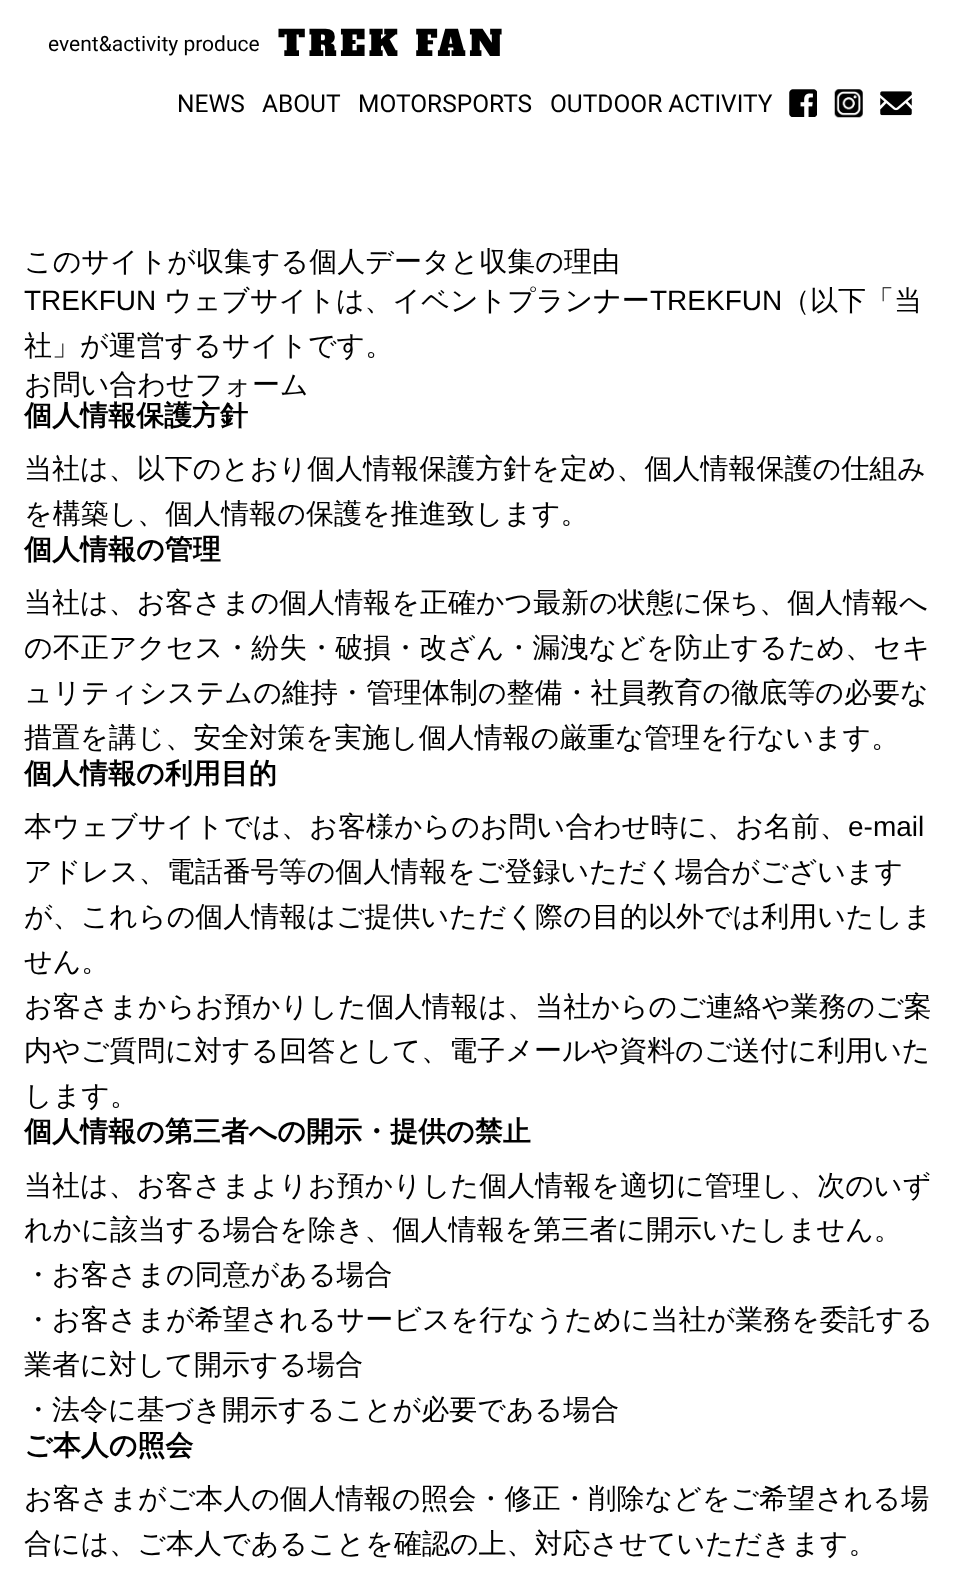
<svg xmlns="http://www.w3.org/2000/svg" width="969" height="1574">
<style>
.a{font:21px Roboto;fill:#000}
.b{font:35px Alfa Slab One;letter-spacing:3.5px;fill:#000}
.c{font:24.5px Roboto;fill:#000}
.d{font:500 28px WenQuanYi Zen Hei;fill:#000}
.e{font:28px Liberation Sans;fill:#000}
.f{font:bold 28px WenQuanYi Zen Hei;fill:#000}
</style>
<rect width="100%" height="100%" fill="#fff"/>
<image href="1.png" x="789" y="89" width="28" height="28"/>
<image href="2.png" x="834" y="89" width="29" height="29"/>
<image href="3.png" x="880" y="91" width="32" height="25"/>
<text class="a" x="48" y="51">event&amp;activity produce</text>
<text class="b" x="278" y="56">TREK FAN</text>
<text class="c" x="177" y="112">NEWS</text>
<text class="c" x="262" y="112">ABOUT</text>
<text class="c" x="358" y="112">MOTORSPORTS</text>
<text class="c" x="550" y="112">OUTDOOR ACTIVITY</text>
<text class="d" x="24" y="271">このサイトが収集する個人データと収集の理由</text>
<text class="e" x="24" y="310">TREKFUN</text>
<text class="d" x="164" y="310">ウェブサイトは、イベントプランナー</text>
<text class="e" x="650" y="310">TREKFUN</text>
<text class="d" x="782" y="310">（以下「当</text>
<text class="d" x="24" y="355">社」が運営するサイトです。</text>
<text class="d" x="24" y="394">お問い合わせフォーム</text>
<text class="f" x="24" y="425">個人情報保護方針</text>
<text class="d" x="24" y="478">当社は、以下のとおり個人情報保護方針を定め、個人情報保護の仕組み</text>
<text class="d" x="24" y="523">を構築し、個人情報の保護を推進致します。</text>
<text class="f" x="24" y="559">個人情報の管理</text>
<text class="d" x="24" y="612">当社は、お客さまの個人情報を正確かつ最新の状態に保ち、個人情報へ</text>
<text class="d" x="24" y="657">の不正アクセス・紛失・破損・改ざん・漏洩などを防止するため、セキ</text>
<text class="d" x="24" y="702">ュリティシステムの維持・管理体制の整備・社員教育の徹底等の必要な</text>
<text class="d" x="24" y="747">措置を講じ、安全対策を実施し個人情報の厳重な管理を行ないます。</text>
<text class="f" x="24" y="783">個人情報の利用目的</text>
<text class="d" x="24" y="836">本ウェブサイトでは、お客様からのお問い合わせ時に、お名前、</text>
<text class="e" x="848" y="836">e-mail</text>
<text class="d" x="24" y="881">アドレス、電話番号等の個人情報をご登録いただく場合がございます</text>
<text class="d" x="24" y="926">が、これらの個人情報はご提供いただく際の目的以外では利用いたしま</text>
<text class="d" x="24" y="971">せん。</text>
<text class="d" x="24" y="1016">お客さまからお預かりした個人情報は、当社からのご連絡や業務のご案</text>
<text class="d" x="24" y="1060">内やご質問に対する回答として、電子メールや資料のご送付に利用いた</text>
<text class="d" x="24" y="1105">します。</text>
<text class="f" x="24" y="1141">個人情報の第三者への開示・提供の禁止</text>
<text class="d" x="24" y="1195">当社は、お客さまよりお預かりした個人情報を適切に管理し、次のいず</text>
<text class="d" x="24" y="1239">れかに該当する場合を除き、個人情報を第三者に開示いたしません。</text>
<text class="d" x="24" y="1284">・お客さまの同意がある場合</text>
<text class="d" x="24" y="1329">・お客さまが希望されるサービスを行なうために当社が業務を委託する</text>
<text class="d" x="24" y="1374">業者に対して開示する場合</text>
<text class="d" x="24" y="1419">・法令に基づき開示することが必要である場合</text>
<text class="f" x="24" y="1455">ご本人の照会</text>
<text class="d" x="24" y="1508">お客さまがご本人の個人情報の照会・修正・削除などをご希望される場</text>
<text class="d" x="24" y="1553">合には、ご本人であることを確認の上、対応させていただきます。</text>
</svg>
